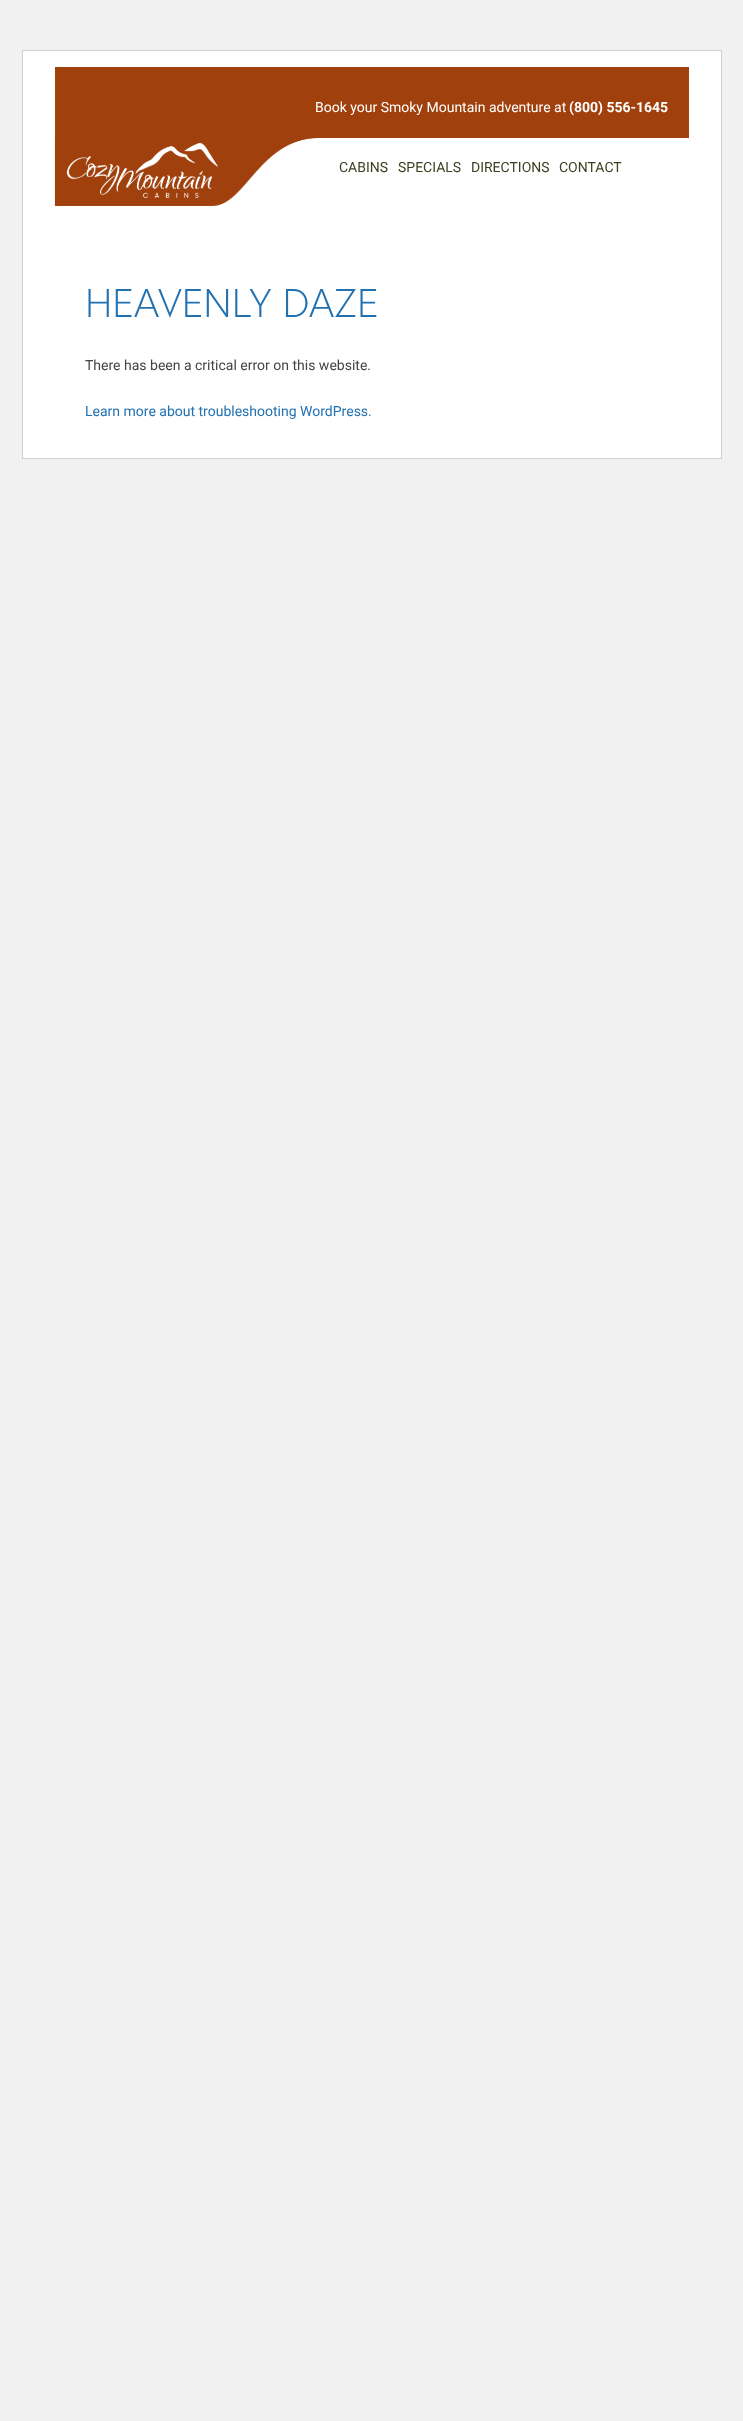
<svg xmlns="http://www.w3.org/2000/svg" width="743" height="2421">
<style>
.a{font:14px Roboto;fill:#fff}
.b{font:bold 14px Roboto;fill:#fff}
.c{font:14px Roboto;fill:#394220}
.d{font:300 40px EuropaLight;fill:#2271b1}
.e{font:14px Roboto;fill:#444}
.f{font:14px Roboto;fill:#2271b1}
</style>
<rect width="100%" height="100%" fill="#f1f1f1"/>
<path fill="#fff" stroke="#ccd0d4" d="M22.5 50.5h699v408H22.5z"/>
<path fill="#a0410d" d="M55 67h634v71H55z"/>
<image href="1.png" x="54" y="138" width="265" height="68"/>
<text class="a" x="315" y="112">Book your Smoky Mountain adventure at</text>
<text class="b" x="569" y="112">(800) 556-1645</text>
<text class="c" x="339" y="172">CABINS</text>
<text class="c" x="398" y="172">SPECIALS</text>
<text class="c" x="471" y="172">DIRECTIONS</text>
<text class="c" x="559" y="172">CONTACT</text>
<text class="d" x="85" y="317">HEAVENLY DAZE</text>
<text class="e" x="85" y="370">There has been a critical error on this website.</text>
<text class="f" x="85" y="416">Learn more about troubleshooting WordPress.</text>
</svg>
